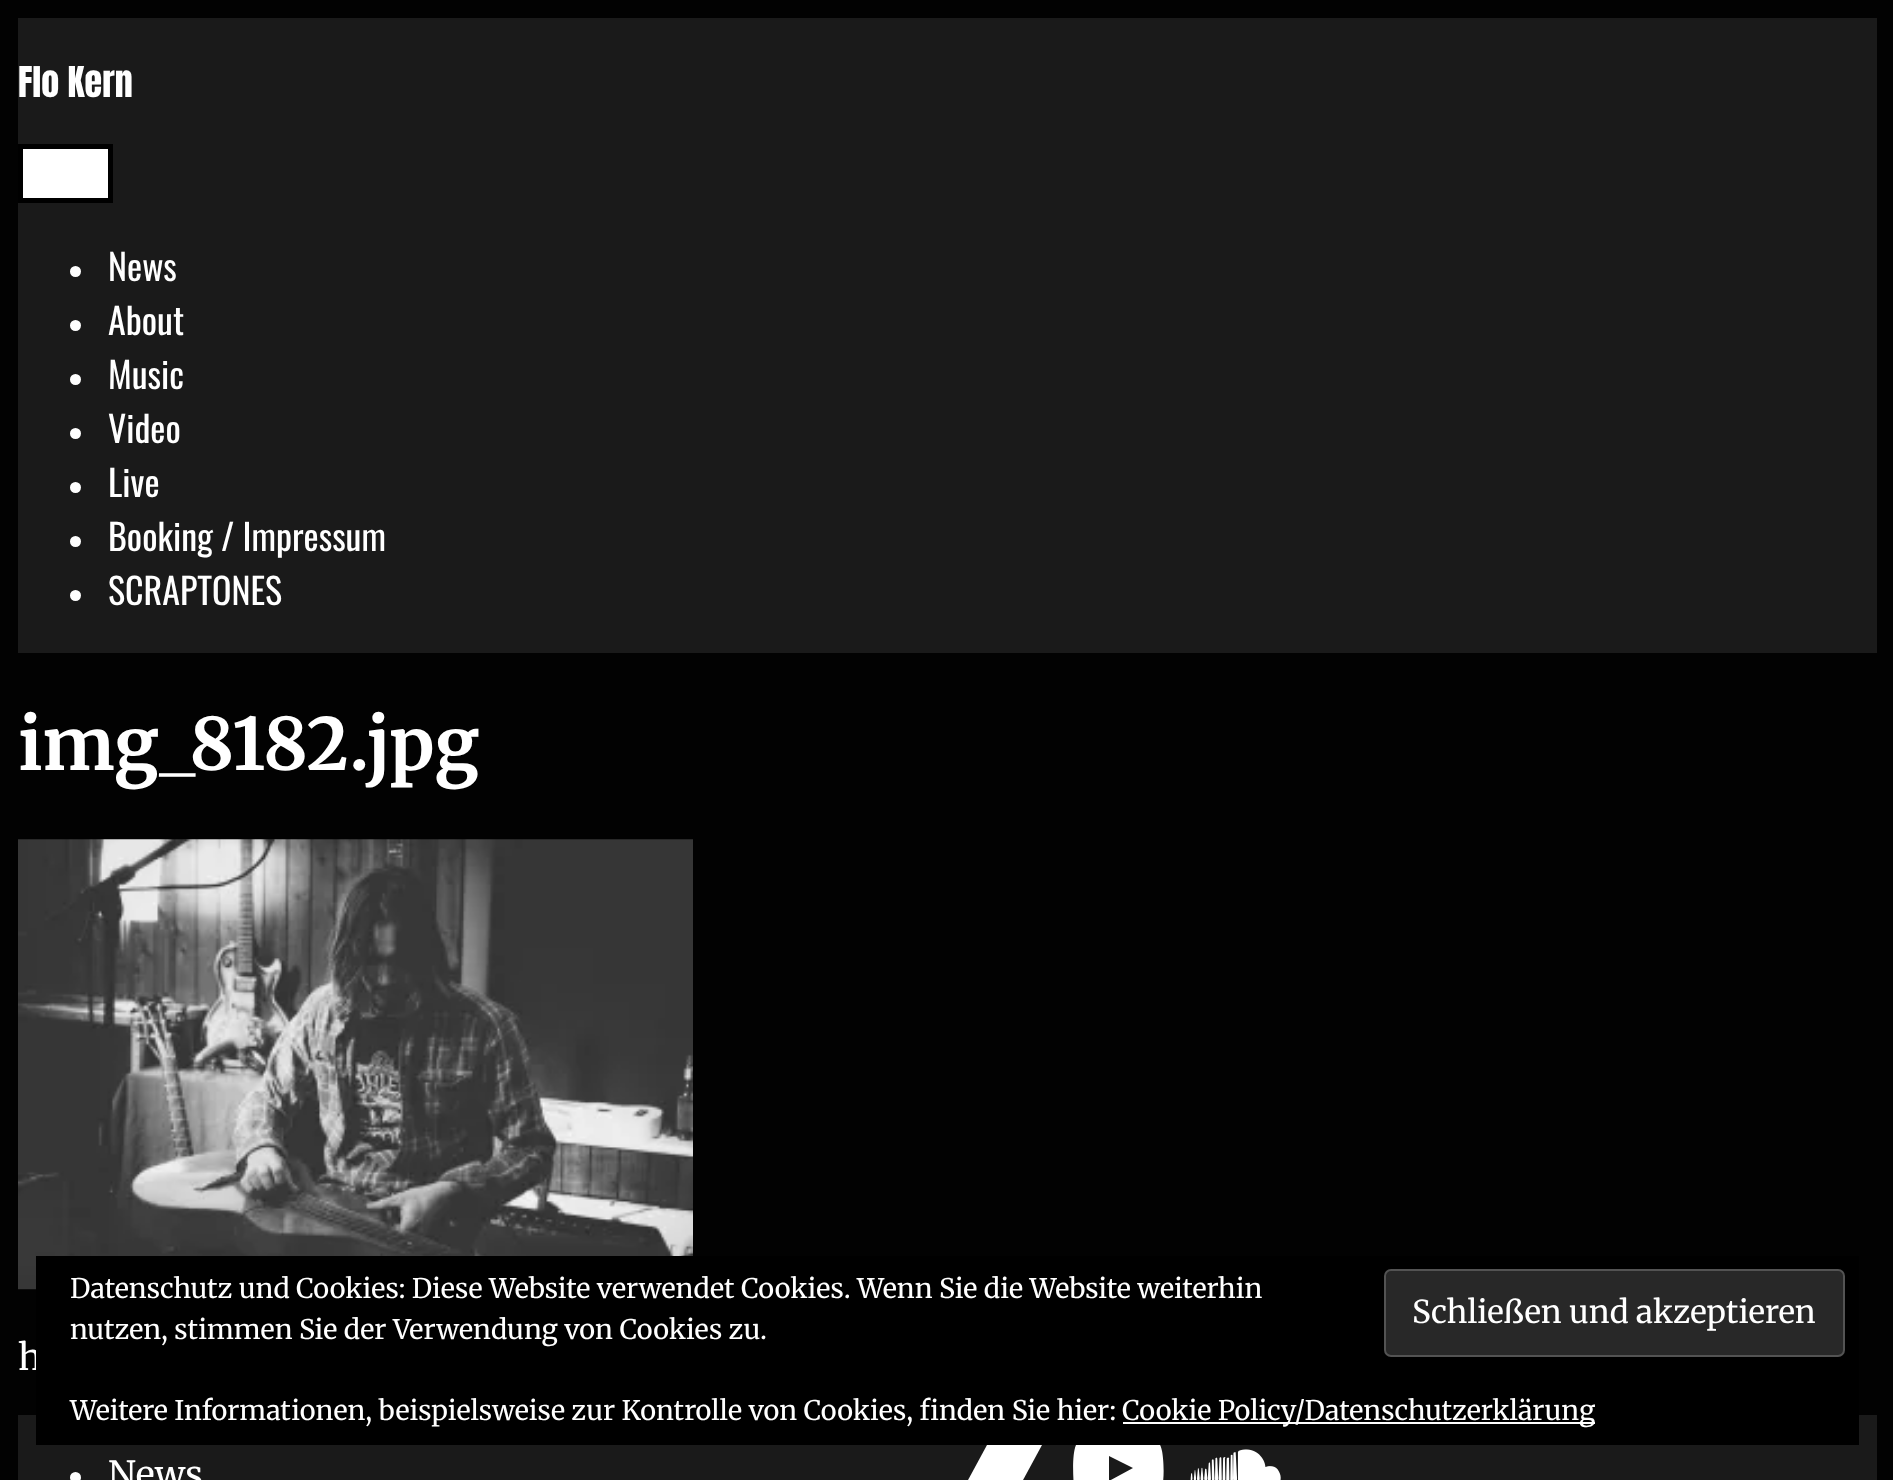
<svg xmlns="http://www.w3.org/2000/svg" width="1893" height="1480">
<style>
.a{font:36px Anton;fill:#fff}
.b{font:36px Oswald;fill:#fff}
.c{font:bold 72px Merriweather;fill:#fff}
.d{font:36px Merriweather;fill:#fff}
.e{font:27px Merriweather;fill:#fff}
.f{font:31.5px Merriweather;fill:#fff}
</style>
<rect width="100%" height="100%" fill="#020202"/>
<path fill="#1a1a1a" d="M18 18h1859v635H18z"/>
<path fill="#fff" stroke="#000" stroke-width="5" d="M20.5 146.5h90v54H20.5z"/>
<circle fill="#fff" cx="75.5" cy="271.5" r="5.5"/>
<circle fill="#fff" cx="75.5" cy="325.5" r="5.5"/>
<circle fill="#fff" cx="75.5" cy="379.5" r="5.5"/>
<circle fill="#fff" cx="75.5" cy="433.5" r="5.5"/>
<circle fill="#fff" cx="75.5" cy="487.5" r="5.5"/>
<circle fill="#fff" cx="75.5" cy="541.5" r="5.5"/>
<circle fill="#fff" cx="75.5" cy="595.5" r="5.5"/>
<image href="1.png" x="18" y="839" width="675" height="451"/>
<path fill="#1a1a1a" d="M18 1415h1859v65H18z"/>
<circle fill="#fff" cx="75.5" cy="1477.5" r="5.5"/>
<path fill="#fff" d="M1016 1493h-55l26-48h55l-26 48"/>
<path fill="#fff" d="M1162 1451c-2-13-11-13-22-13h-28h-20c-3 0-7 0-10 2c-3 1-5 2-6 5c-4 9-3 32-2 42c2 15 15 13 26 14h25l20-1c3 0 7 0 10-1c2-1 4-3 5-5c5-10 4-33 2-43zm-53 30v-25l24 12z"/>
<image href="2.png" x="1190" y="1449" width="91" height="31"/>
<text class="a" x="18" y="97">Flo Kern</text>
<text class="b" x="108" y="281">News</text>
<text class="b" x="108" y="335">About</text>
<text class="b" x="108" y="389">Music</text>
<text class="b" x="108" y="443">Video</text>
<text class="b" x="108" y="497">Live</text>
<text class="b" x="108" y="551">Booking / Impressum</text>
<text class="b" x="108" y="605">SCRAPTONES</text>
<text class="c" x="18" y="770">img_8182.jpg</text>
<text class="d" x="18" y="1370">h</text>
<path fill="#000" d="M36 1256h1823v189H36z"/>
<text class="e" x="70" y="1298">Datenschutz und Cookies: Diese Website verwendet Cookies. Wenn Sie die Website weiterhin</text>
<text class="e" x="70" y="1339">nutzen, stimmen Sie der Verwendung von Cookies zu.</text>
<rect fill="#282828" stroke="#535353" stroke-width="2" x="1385" y="1270" width="459" height="86" rx="6"/>
<text class="f" x="1412" y="1323">Schließen und akzeptieren</text>
<text class="e" x="70" y="1420">Weitere Informationen, beispielsweise zur Kontrolle von Cookies, finden Sie hier:</text>
<path fill="#fff" d="M1123 1422h472v2H1123z"/>
<text class="e" x="1122" y="1420">Cookie Policy/Datenschutzerklärung</text>
<text class="d" x="108" y="1487">News</text>
</svg>
